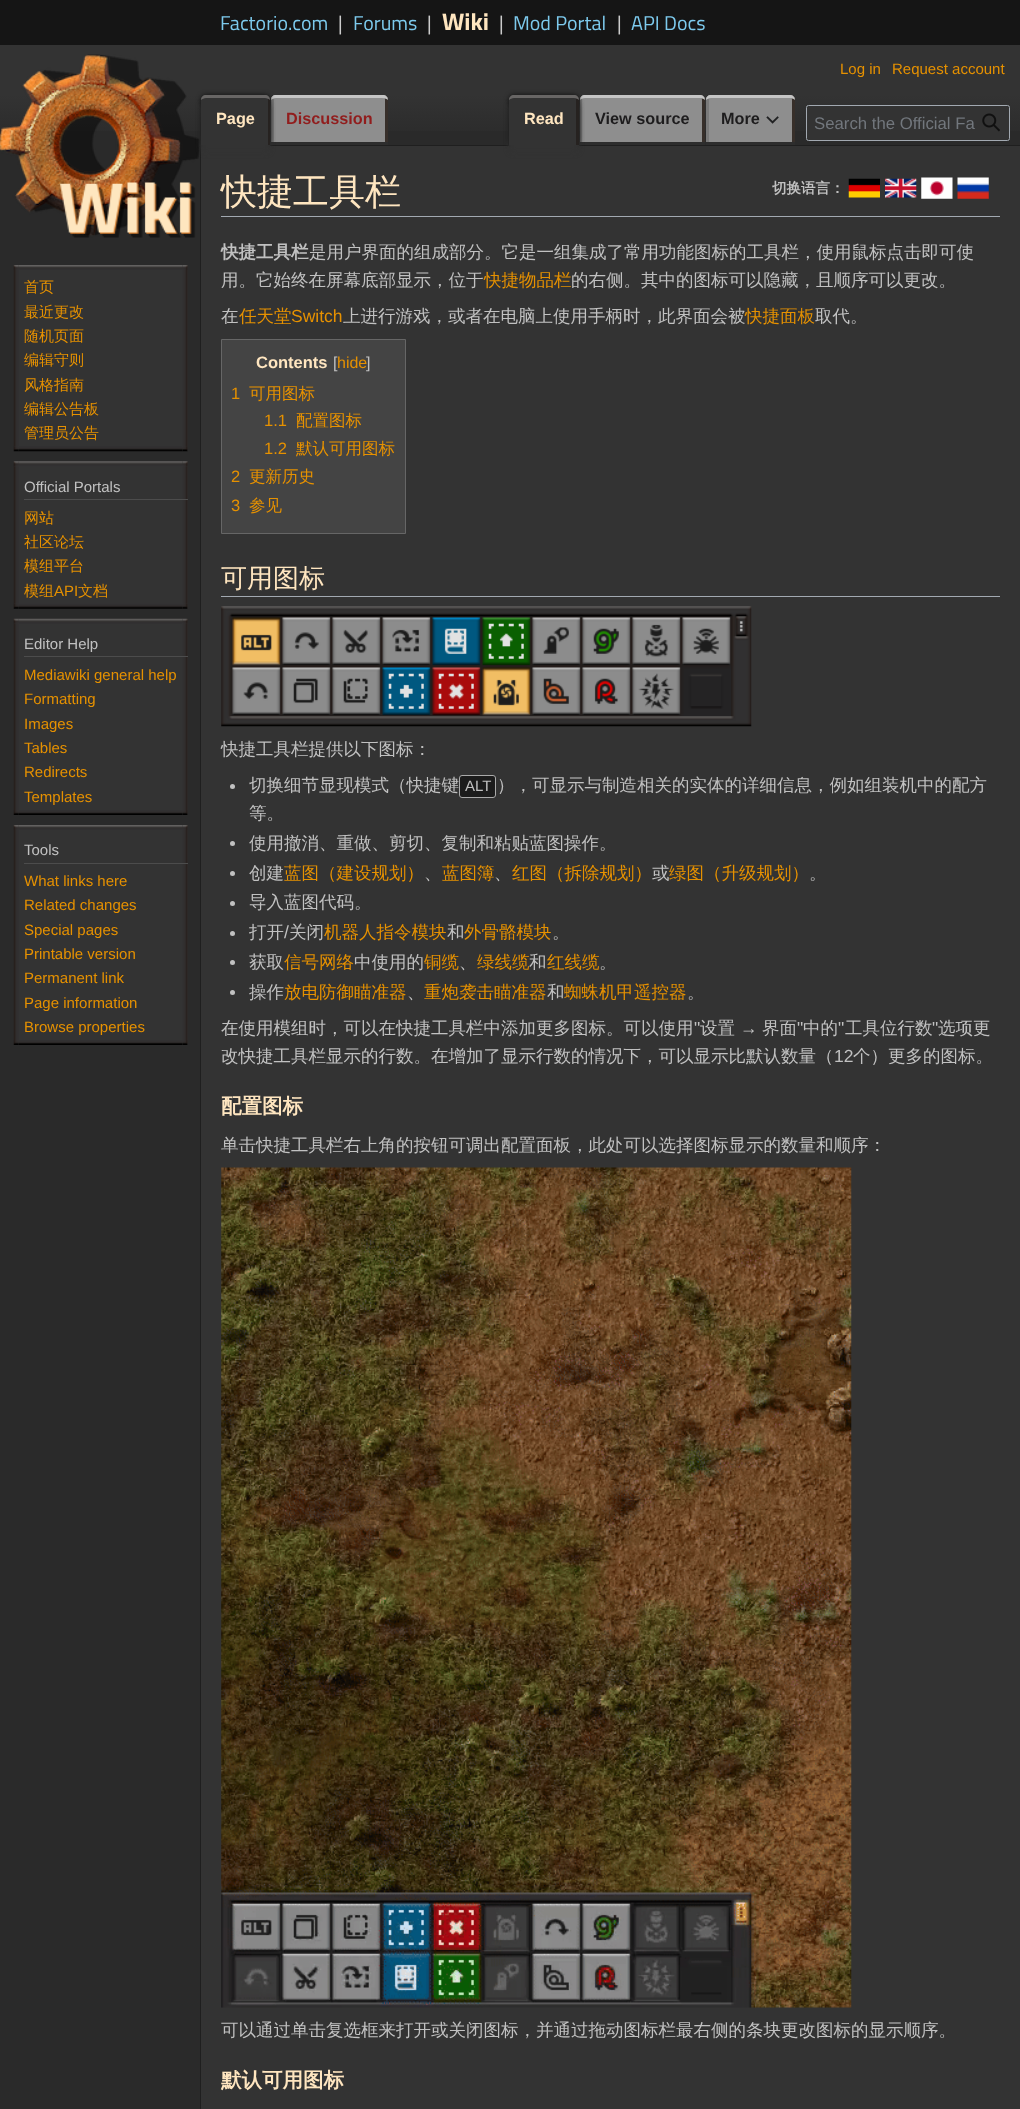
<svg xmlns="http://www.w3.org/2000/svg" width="1020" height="2109">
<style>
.a{font:20px Titillium Web;fill:#7dcaed}
.b{font:20px Titillium Web;fill:#ccc}
.c{font:bold 24px Titillium Web;fill:#ffe6c0}
.d{font:15px Liberation Sans;fill:#e69100}
.e{font:bold 16.25px Liberation Sans;fill:#ffe6c0}
.f{font:bold 16.25px Liberation Sans;fill:#911d1d}
.g{font:bold 16.25px Liberation Sans;fill:#1d1c1d}
.h{font:16.75px Liberation Sans;fill:#72777d}
.i{font:500 15px WenQuanYi Zen Hei;fill:#e69100}
.j{font:15px Liberation Sans;fill:#c1c1c1}
.k{font:500 36px WenQuanYi Zen Hei;fill:#ffe6c0}
.l{font:bold 14.5px WenQuanYi Zen Hei;fill:#c1c1c1}
.m{font:bold 17.5px WenQuanYi Zen Hei;fill:#c1c1c1}
.n{font:500 17.5px WenQuanYi Zen Hei;fill:#c1c1c1}
.o{font:500 17.5px WenQuanYi Zen Hei;fill:#e69100}
.p{font:17.5px Liberation Sans;fill:#e69100}
.q{font:bold 16.5px Liberation Sans;fill:#ffe6c0}
.r{font:16px Liberation Sans;fill:#c1c1c1}
.s{font:16px Liberation Sans;fill:#e69100}
.t{font:16.5px Liberation Sans;fill:#e69100}
.u{font:500 16.5px WenQuanYi Zen Hei;fill:#e69100}
.v{font:500 26px WenQuanYi Zen Hei;fill:#ffe6c0}
.w{font:17.5px Liberation Sans;fill:#c1c1c1}
.x{font:bold 20.5px WenQuanYi Zen Hei;fill:#ffe6c0}
</style>
<defs>
<linearGradient id="g1" gradientUnits="userSpaceOnUse" x1="510" y1="45" x2="510" y2="145"><stop offset="0.5" stop-color="#333"/><stop offset="1" stop-color="#2a2a2a"/></linearGradient>
<linearGradient id="g2" gradientUnits="userSpaceOnUse" x1="201" y1="95" x2="201" y2="145"><stop offset="0.05" stop-color="#333"/><stop offset="0.6" stop-color="#1f1f1f"/></linearGradient>
<linearGradient id="g3" gradientUnits="userSpaceOnUse" x1="508" y1="95" x2="508" y2="145"><stop offset="0.05" stop-color="#333"/><stop offset="0.6" stop-color="#1f1f1f"/></linearGradient>
</defs>
<rect width="100%" height="100%" fill="#2a2a2a"/>
<path fill="#151515" d="M0 0h1020v45H0z"/>
<path fill="url(#g1)" d="M0 45h1020v86H0z"/>
<path fill="url(#g2)" d="M200 95h1v50H200z"/>
<path fill="#333" d="M201 109h69v37H201z"/>
<path fill="#8e8e8e" d="M276 95h107c3 0 5 2 5 5v45h-117v-45c0-3 2-5 5-5z"/>
<path fill="#7a7a7a" d="M276 95c-3 0-5 2-5 5v45h3v-45c0-2 1-4 2-5z"/>
<path fill="#372f2a" d="M385 145h3v-45c0-3-2-5-5-5c1 1 2 3 2 5z"/>
<path fill="#2d2d2d" d="M271 142h117v3H271z"/>
<path fill="#c5c5c5" d="M276 98h106c3 0 5 1 6 2c0-3-2-5-5-5h-107c-3 0-5 2-5 5c1-1 3-2 5-2z"/>
<image href="3.png" x="0" y="54" width="200" height="184"/>
<path fill="#333" d="M201 146h819v1963H201z"/>
<path fill="#1f1f1f" d="M270 145h750v1H270z"/>
<path fill="#1f1f1f" d="M200 145h1v1964H200z"/>
<rect fill="#101010" filter="blur(2.5px)" x="201" y="95" width="69" height="50" rx="5"/>
<rect fill="#333" filter="blur(2.5px)" x="201" y="103" width="69" height="50" rx="5"/>
<path fill="#333" d="M206 95h59c3 0 5 2 5 5v45h-69v-45c0-3 2-5 5-5z"/>
<path fill="#262220" d="M268 145h2v-45c0-2-2-4-4-5c1 2 2 3 2 5z"/>
<path fill="#686665" d="M206 98h59c2 0 4 1 5 2c0-3-2-5-5-5h-59c-3 0-5 2-5 5c1-1 3-2 5-2z"/>
<path fill="url(#g3)" d="M508 95h1v50H508z"/>
<path fill="#333" d="M509 109h70v37H509z"/>
<path fill="#8e8e8e" d="M585 95h115c3 0 5 2 5 5v45h-125v-45c0-3 2-5 5-5z"/>
<path fill="#7a7a7a" d="M584 95c-2 1-4 3-4 5v45h2v-45c0-2 1-3 2-5z"/>
<path fill="#372f2a" d="M702 145h3v-45c0-3-2-5-5-5c1 1 2 3 2 5z"/>
<path fill="#2d2d2d" d="M580 142h125v3H580z"/>
<path fill="#c5c5c5" d="M585 98h115c2 0 4 1 5 2c0-3-2-5-5-5h-115c-3 0-5 2-5 5c1-1 3-2 5-2z"/>
<rect fill="#101010" filter="blur(2.5px)" x="509" y="95" width="70" height="50" rx="5"/>
<rect fill="#333" filter="blur(2.5px)" x="509" y="103" width="70" height="50" rx="5"/>
<path fill="#333" d="M514 95h60c3 0 5 2 5 5v45h-70v-45c0-3 2-5 5-5z"/>
<path fill="#262220" d="M576 145h3v-45c0-3-2-5-5-5c1 1 2 3 2 5z"/>
<path fill="#686665" d="M514 98h60c2 0 4 1 5 2c0-3-2-5-5-5h-60c-3 0-5 2-5 5c1-1 3-2 5-2z"/>
<path fill="#8e8e8e" d="M711 95h79c3 0 5 2 5 5v45h-89v-45c0-3 2-5 5-5z"/>
<path fill="#372f2a" d="M792 145h3v-45c0-3-2-5-5-5c1 1 2 3 2 5z"/>
<path fill="#7a7a7a" d="M711 95c-3 0-5 2-5 5v45h3v-45c0-2 1-4 2-5z"/>
<path fill="#2d2d2d" d="M706 142h89v3H706z"/>
<path fill="#c5c5c5" d="M711 98h79c2 0 4 1 5 2c0-3-2-5-5-5h-79c-3 0-5 2-5 5c1-1 3-2 5-2z"/>
<image href="1.png" x="766" y="116" width="13" height="8"/>
<rect fill="#333" stroke="#a2a9b1" x="806.5" y="105.5" width="203" height="35" rx="2"/>
<image href="2.png" x="982" y="113" width="18" height="19"/>
<path fill="#333" d="M14 265h174v186H14z"/>
<image href="4.png" x="13" y="265" width="175" height="187"/>
<path fill="#333" d="M14 461h174v148H14z"/>
<image href="5.png" x="13" y="461" width="175" height="148"/>
<path fill="#4c4c4c" d="M24 499h164v1H24z"/>
<path fill="#333" d="M14 619h174v196H14z"/>
<image href="6.png" x="13" y="618" width="175" height="197"/>
<path fill="#4c4c4c" d="M24 656h164v1H24z"/>
<path fill="#333" d="M18 825h170v220H18z"/>
<image href="7.png" x="13" y="825" width="175" height="220"/>
<path fill="#4c4c4c" d="M24 863h164v1H24z"/>
<path fill="#a2a9b1" d="M221 216h779v1H221z"/>
<image href="8.png" x="848" y="178" width="32" height="20"/>
<image href="9.png" x="885" y="178" width="32" height="20"/>
<image href="10.png" x="921" y="177" width="32" height="22"/>
<image href="11.png" x="957" y="177" width="32" height="22"/>
<path fill="#444" stroke="#666" d="M221.5 339.5h184v194H221.5z"/>
<path fill="#a2a9b1" d="M221 596h779v1H221z"/>
<image href="12.png" x="221" y="606" width="531" height="121"/>
<circle fill="#c1c1c1" cx="232.5" cy="786.5" r="2.5"/>
<rect fill="#1c1c1c" stroke="#aaa" x="459.5" y="775.5" width="36" height="22" rx="2.5"/>
<circle fill="#c1c1c1" cx="232.5" cy="843.5" r="2.5"/>
<circle fill="#c1c1c1" cx="232.5" cy="873.5" r="2.5"/>
<circle fill="#c1c1c1" cx="232.5" cy="903.5" r="2.5"/>
<circle fill="#c1c1c1" cx="232.5" cy="933.5" r="2.5"/>
<circle fill="#c1c1c1" cx="232.5" cy="962.5" r="2.5"/>
<circle fill="#c1c1c1" cx="232.5" cy="992.5" r="2.5"/>
<image href="13.png" x="221" y="1167" width="631" height="841"/>
<text class="a" x="220" y="30">Factorio.com</text>
<text class="b" x="338" y="30">|</text>
<text class="a" x="353" y="30">Forums</text>
<text class="b" x="427" y="30">|</text>
<text class="c" x="442" y="30">Wiki</text>
<text class="b" x="499" y="30">|</text>
<text class="a" x="513" y="30">Mod Portal</text>
<text class="b" x="617" y="30">|</text>
<text class="a" x="631" y="30">API Docs</text>
<text class="d" x="840" y="74">Log in</text>
<text class="d" x="892" y="74">Request account</text>
<text class="e" x="216" y="124">Page</text>
<text class="f" x="286" y="124">Discussion</text>
<text class="e" x="524" y="124">Read</text>
<text class="g" x="595" y="124">View source</text>
<text class="g" x="721" y="124">More</text>
<text class="h" x="814" y="129">Search the Official Fa</text>
<text class="i" x="24" y="292">首页</text>
<text class="i" x="24" y="317">最近更改</text>
<text class="i" x="24" y="341">随机页面</text>
<text class="i" x="24" y="365">编辑守则</text>
<text class="i" x="24" y="390">风格指南</text>
<text class="i" x="24" y="414">编辑公告板</text>
<text class="i" x="24" y="438">管理员公告</text>
<text class="j" x="24" y="492">Official Portals</text>
<text class="i" x="24" y="523">网站</text>
<text class="i" x="24" y="547">社区论坛</text>
<text class="i" x="24" y="571">模组平台</text>
<text class="i" x="24" y="596">模组</text>
<text class="d" x="54" y="596">API</text>
<text class="i" x="78" y="596">文档</text>
<text class="j" x="24" y="649">Editor Help</text>
<text class="d" x="24" y="680">Mediawiki general help</text>
<text class="d" x="24" y="704">Formatting</text>
<text class="d" x="24" y="729">Images</text>
<text class="d" x="24" y="753">Tables</text>
<text class="d" x="24" y="777">Redirects</text>
<text class="d" x="24" y="802">Templates</text>
<text class="j" x="24" y="855">Tools</text>
<text class="d" x="24" y="886">What links here</text>
<text class="d" x="24" y="910">Related changes</text>
<text class="d" x="24" y="935">Special pages</text>
<text class="d" x="24" y="959">Printable version</text>
<text class="d" x="24" y="983">Permanent link</text>
<text class="d" x="24" y="1008">Page information</text>
<text class="d" x="24" y="1032">Browse properties</text>
<text class="k" x="221" y="204">快捷工具栏</text>
<text class="l" x="772" y="193">切换语言：</text>
<text class="m" x="221" y="258">快捷工具栏</text>
<text class="n" x="309" y="258">是用户界面的组成部分。它是一组集成了常用功能图标的工具栏，使用鼠标点击即可使</text>
<text class="n" x="221" y="286">用。它始终在屏幕底部显示，位于</text>
<text class="o" x="484" y="286">快捷物品栏</text>
<text class="n" x="571" y="286">的右侧。其中的图标可以隐藏，且顺序可以更改。</text>
<text class="n" x="221" y="322">在</text>
<text class="o" x="239" y="322">任天堂</text>
<text class="p" x="291" y="322">Switch</text>
<text class="n" x="343" y="322">上进行游戏，或者在电脑上使用手柄时，此界面会被</text>
<text class="o" x="745" y="322">快捷面板</text>
<text class="n" x="815" y="322">取代。</text>
<text class="q" x="256" y="368">Contents</text>
<text class="r" x="333" y="368">[</text>
<text class="s" x="337" y="368">hide</text>
<text class="r" x="366" y="368">]</text>
<text class="t" x="231" y="399">1</text>
<text class="u" x="249" y="399">可用图标</text>
<text class="t" x="264" y="426">1.1</text>
<text class="u" x="296" y="426">配置图标</text>
<text class="t" x="264" y="454">1.2</text>
<text class="u" x="296" y="454">默认可用图标</text>
<text class="t" x="231" y="482">2</text>
<text class="u" x="249" y="482">更新历史</text>
<text class="t" x="231" y="511">3</text>
<text class="u" x="249" y="511">参见</text>
<text class="v" x="221" y="587">可用图标</text>
<text class="n" x="221" y="755">快捷工具栏提供以下图标：</text>
<text class="n" x="249" y="791">切换细节显现模式（快捷键</text>
<text class="j" x="465" y="791">ALT</text>
<text class="n" x="497" y="791">），可显示与制造相关的实体的详细信息，例如组装机中的配方</text>
<text class="n" x="249" y="819">等。</text>
<text class="n" x="249" y="849">使用撤消、重做、剪切、复制和粘贴蓝图操作。</text>
<text class="n" x="249" y="879">创建</text>
<text class="o" x="284" y="879">蓝图（建设规划）</text>
<text class="o" x="442" y="879">蓝图簿</text>
<text class="o" x="512" y="879">红图（拆除规划）</text>
<text class="n" x="652" y="879">或</text>
<text class="o" x="669" y="879">绿图（升级规划）</text>
<text class="n" x="424" y="879">、</text>
<text class="n" x="494" y="879">、</text>
<text class="n" x="809" y="879">。</text>
<text class="n" x="249" y="908">导入蓝图代码。</text>
<text class="n" x="249" y="938">打开</text>
<text class="w" x="284" y="938">/</text>
<text class="n" x="289" y="938">关闭</text>
<text class="o" x="324" y="938">机器人指令模块</text>
<text class="n" x="447" y="938">和</text>
<text class="o" x="464" y="938">外骨骼模块</text>
<text class="n" x="552" y="938">。</text>
<text class="n" x="249" y="968">获取</text>
<text class="o" x="284" y="968">信号网络</text>
<text class="n" x="354" y="968">中使用的</text>
<text class="o" x="424" y="968">铜缆</text>
<text class="o" x="477" y="968">绿线缆</text>
<text class="n" x="529" y="968">和</text>
<text class="o" x="547" y="968">红线缆</text>
<text class="n" x="459" y="968">、</text>
<text class="n" x="599" y="968">。</text>
<text class="n" x="249" y="998">操作</text>
<text class="o" x="284" y="998">放电防御瞄准器</text>
<text class="o" x="424" y="998">重炮袭击瞄准器</text>
<text class="n" x="547" y="998">和</text>
<text class="o" x="564" y="998">蜘蛛机甲遥控器</text>
<text class="n" x="407" y="998">、</text>
<text class="n" x="687" y="998">。</text>
<text class="n" x="221" y="1034">在使用模组时，可以在快捷工具栏中添加更多图标。可以使用</text>
<text class="w" x="694" y="1034">"</text>
<text class="n" x="700" y="1034">设置</text>
<text class="n" x="762" y="1034">界面</text>
<text class="w" x="797" y="1034">"</text>
<text class="n" x="803" y="1034">中的</text>
<text class="w" x="838" y="1034">"</text>
<text class="n" x="845" y="1034">工具位行数</text>
<text class="w" x="932" y="1034">"</text>
<text class="n" x="938" y="1034">选项更</text>
<text class="w" x="740" y="1034">→</text>
<text class="n" x="221" y="1062">改快捷工具栏显示的行数。在增加了显示行数的情况下，可以显示比默认数量（</text>
<text class="w" x="834" y="1062">12</text>
<text class="n" x="853" y="1062">个）更多的图标。</text>
<text class="x" x="221" y="1113">配置图标</text>
<text class="n" x="221" y="1151">单击快捷工具栏右上角的按钮可调出配置面板，此处可以选择图标显示的数量和顺序：</text>
<text class="n" x="221" y="2036">可以通过单击复选框来打开或关闭图标，并通过拖动图标栏最右侧的条块更改图标的显示顺序。</text>
<text class="x" x="221" y="2087">默认可用图标</text>
</svg>
